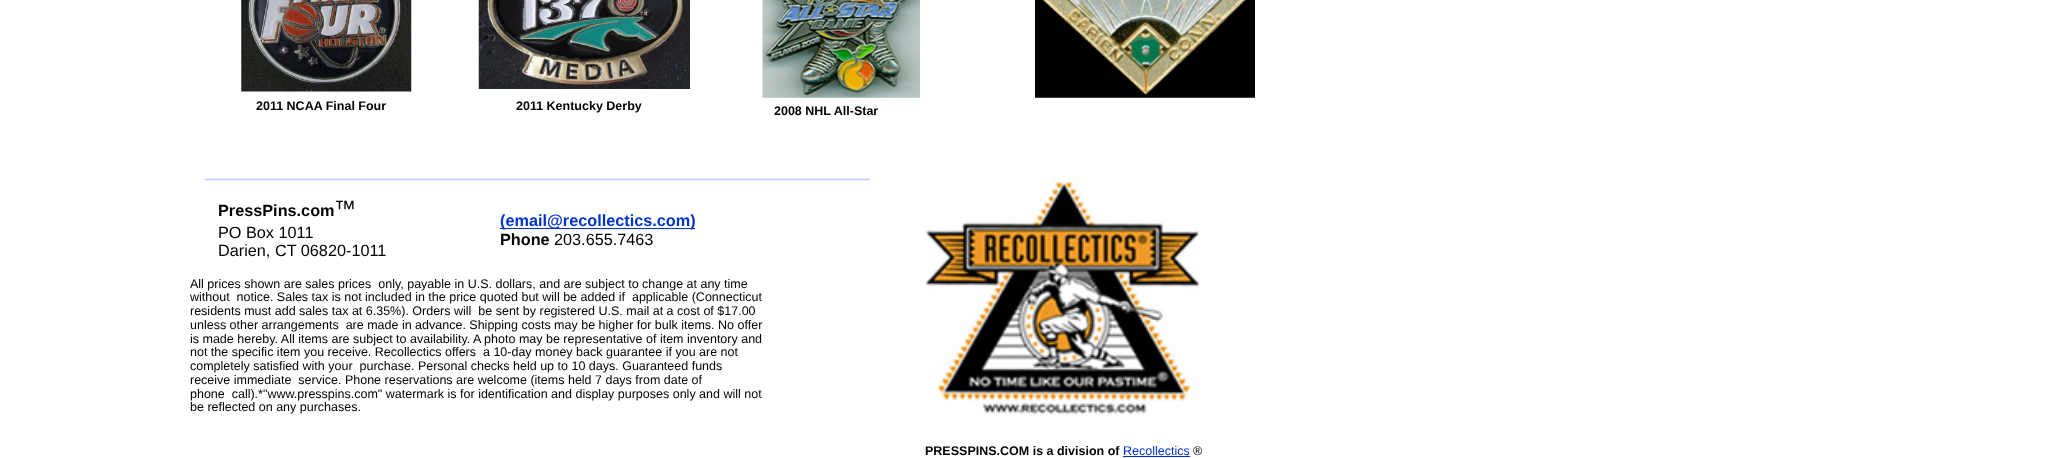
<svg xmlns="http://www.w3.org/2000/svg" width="2054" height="458">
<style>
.a{font:bold 12.5px Liberation Sans;fill:#000}
.b{font:bold 16.25px Liberation Sans;fill:#000}
.c{font:22px Liberation Sans;fill:#000}
.d{font:16.25px Liberation Sans;fill:#000}
.e{font:bold 16.25px Liberation Sans;fill:#03c}
.f{font:12.5px Liberation Sans;fill:#000}
.g{font:12.5px Liberation Sans;fill:#03c}
</style>
<rect width="100%" height="100%" fill="#fff"/>
<image href="1.png" x="1035" y="0" width="220" height="98"/>
<image href="2.png" x="241" y="0" width="171" height="92"/>
<image href="3.png" x="478" y="0" width="212" height="89"/>
<image href="4.png" x="762" y="0" width="158" height="98"/>
<image href="5.png" x="205" y="177" width="665" height="4"/>
<path fill="#03c" d="M500 228h195v1H500z"/>
<image href="6.png" x="925" y="178" width="275" height="237"/>
<path fill="#03c" d="M1123 456h67v1H1123z"/>
<text class="a" x="256" y="110">2011 NCAA Final Four</text>
<text class="a" x="516" y="110">2011 Kentucky Derby</text>
<text class="a" x="774" y="115">2008 NHL All-Star</text>
<text class="b" x="218" y="216">PressPins.com</text>
<text class="c" x="334" y="216">™</text>
<text class="d" x="218" y="238">PO Box 1011</text>
<text class="d" x="218" y="256">Darien, CT 06820-1011</text>
<text class="e" x="500" y="226">(email@recollectics.com)</text>
<text class="b" x="500" y="245">Phone</text>
<text class="d" x="554" y="245">203.655.7463</text>
<text class="f" xml:space="preserve" x="190" y="288">All prices shown are sales prices  only, payable in U.S. dollars, and are subject to change at any time</text>
<text class="f" xml:space="preserve" x="190" y="301">without  notice. Sales tax is not included in the price quoted but will be added if  applicable (Connecticut</text>
<text class="f" xml:space="preserve" x="190" y="315">residents must add sales tax at 6.35%). Orders will  be sent by registered U.S. mail at a cost of $17.00</text>
<text class="f" xml:space="preserve" x="190" y="329">unless other arrangements  are made in advance. Shipping costs may be higher for bulk items. No offer</text>
<text class="f" x="190" y="343">is made hereby. All items are subject to availability. A photo may be representative of item inventory and</text>
<text class="f" xml:space="preserve" x="190" y="356">not the specific item you receive. Recollectics offers  a 10-day money back guarantee if you are not</text>
<text class="f" xml:space="preserve" x="190" y="370">completely satisfied with your  purchase. Personal checks held up to 10 days. Guaranteed funds</text>
<text class="f" xml:space="preserve" x="190" y="384">receive immediate  service. Phone reservations are welcome (items held 7 days from date of</text>
<text class="f" xml:space="preserve" x="190" y="398">phone  call).*"www.presspins.com" watermark is for identification and display purposes only and will not</text>
<text class="f" x="190" y="411">be reflected on any purchases.</text>
<text class="a" x="925" y="455">PRESSPINS.COM is a division of</text>
<text class="g" x="1123" y="455">Recollectics</text>
<text class="f" x="1193" y="455">®</text>
</svg>
